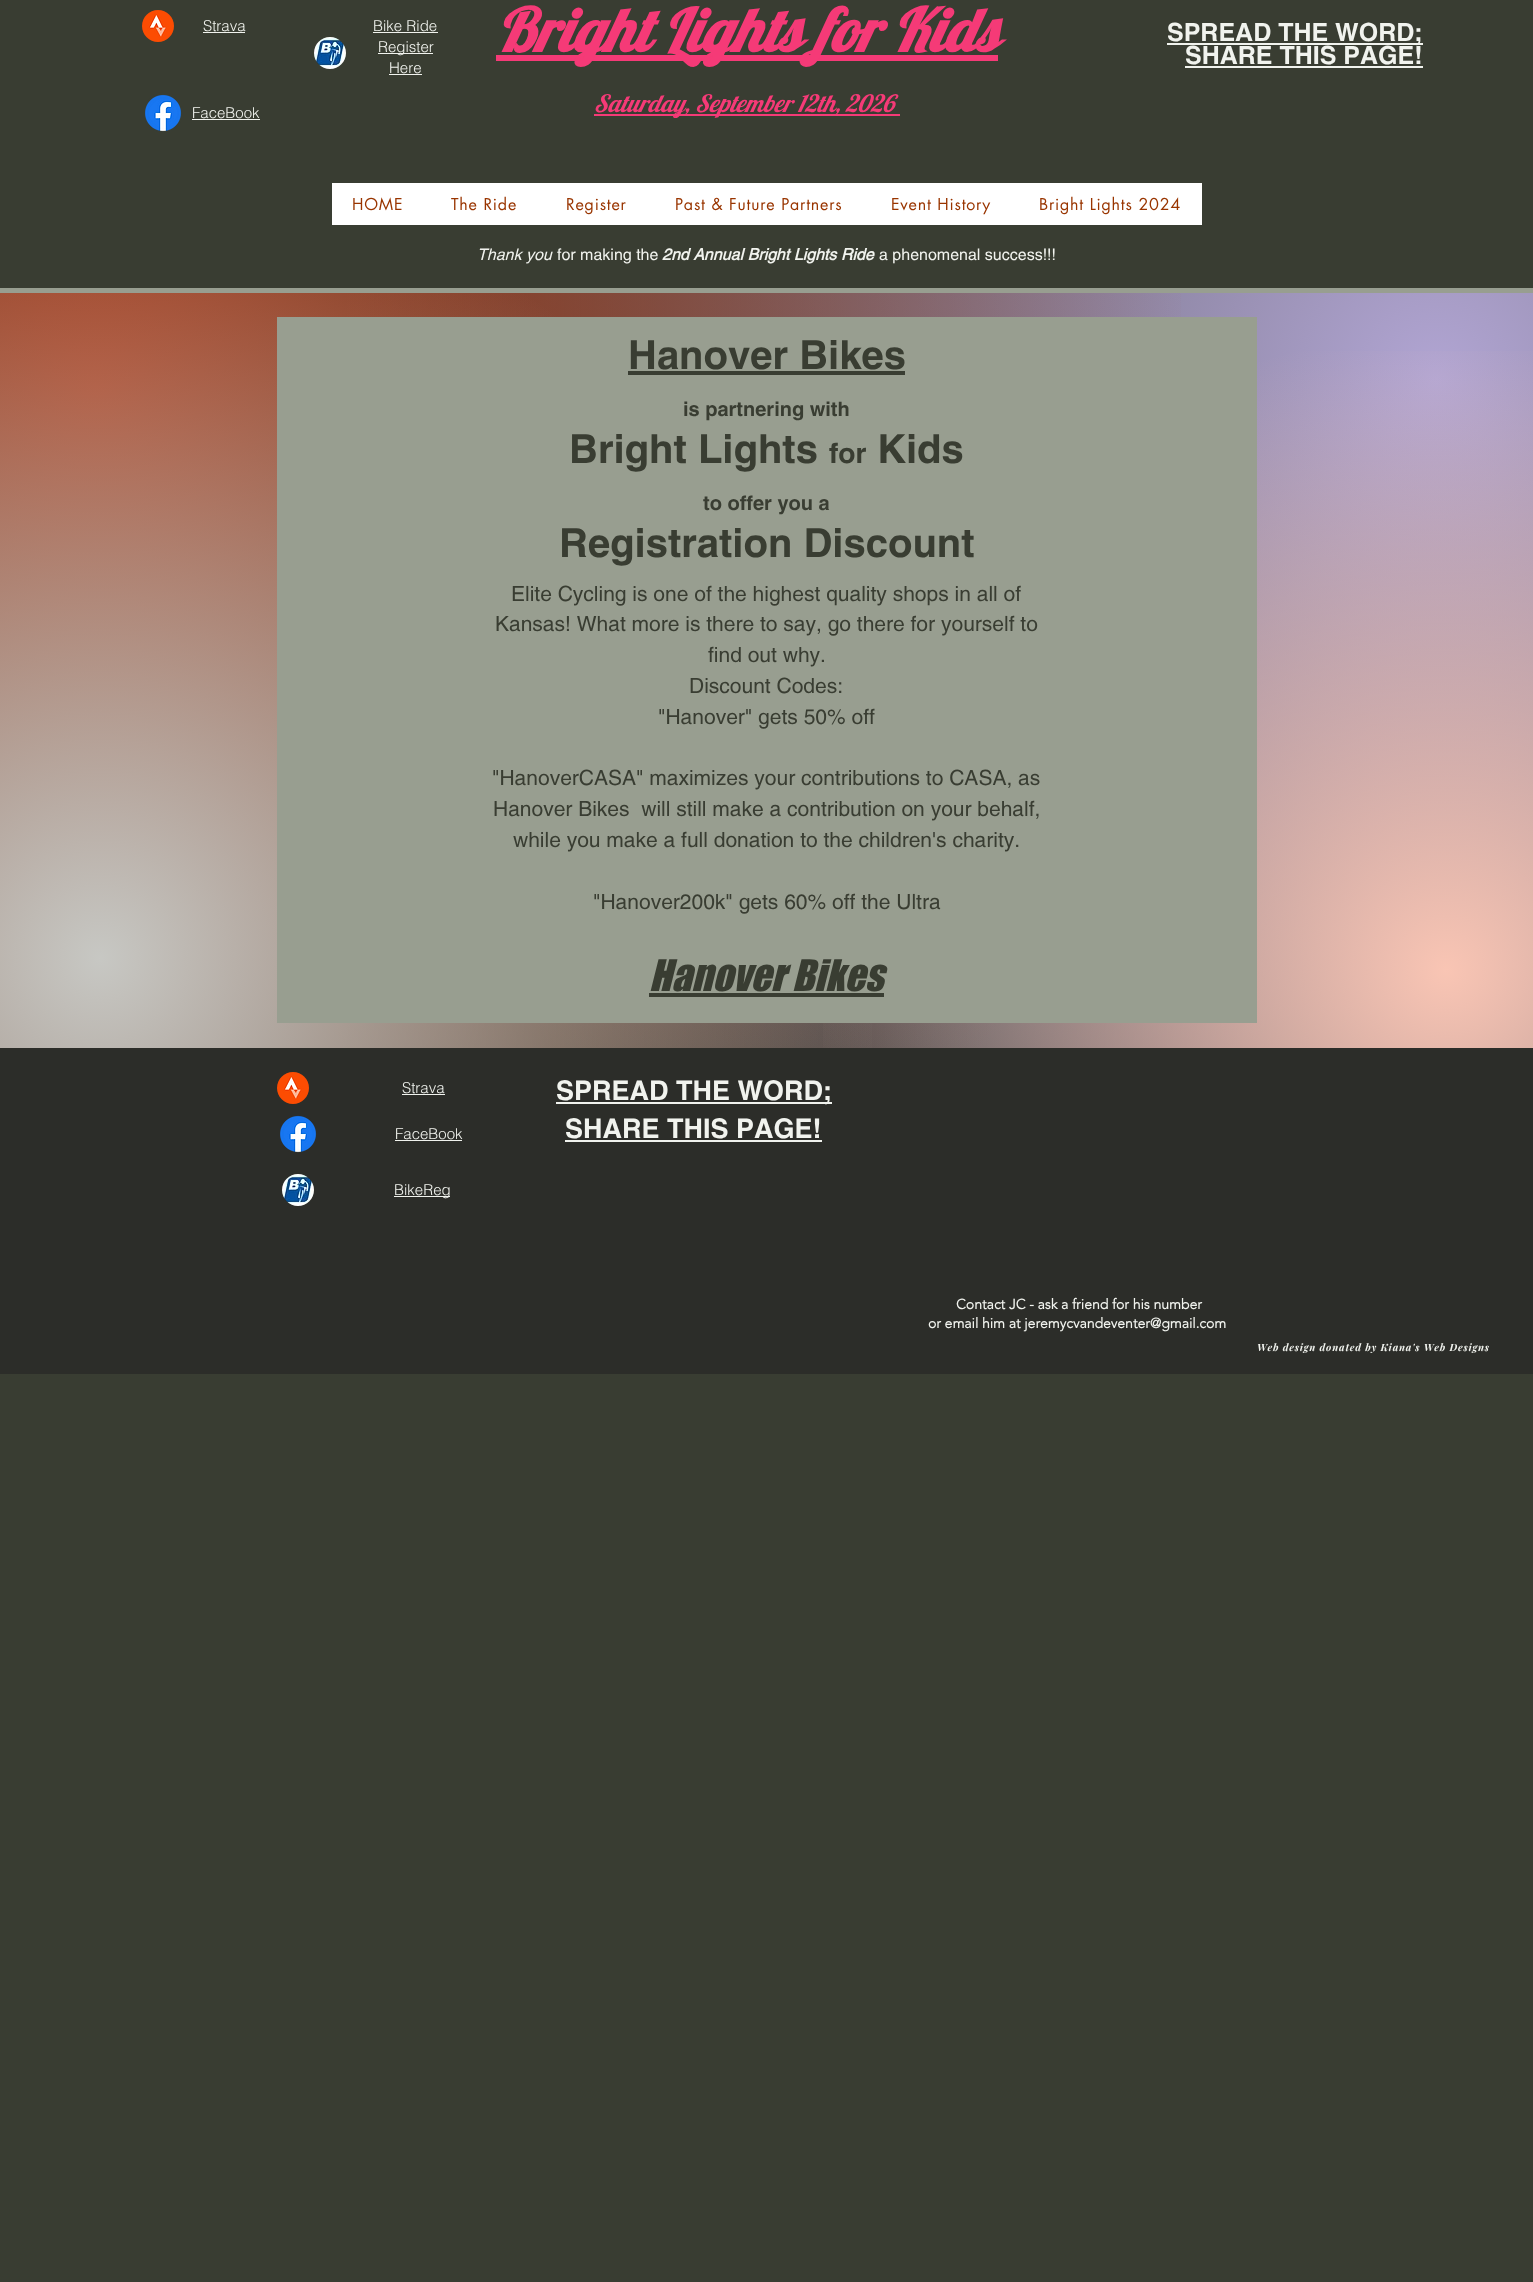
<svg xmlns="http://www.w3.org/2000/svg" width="1533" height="2282">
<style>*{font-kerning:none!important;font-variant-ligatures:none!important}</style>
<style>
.a{font:300 15px helvetica;fill:#f1f3ee}
.b{font:italic bold 60px Lobster;fill:#f53a77}
.c{font:italic 24px Lobster;fill:#f53a77}
.d{font:bold 25px helvetica;fill:#f1f3ee}
.e{font:16px futura;letter-spacing:0.8px;fill:#993500}
.f{font:italic 16px helvetica;fill:#f1f3ee}
.g{font:16px helvetica;fill:#f1f3ee}
.h{font:italic bold 16px helvetica;fill:#f1f3ee}
.i{font:bold 40px helvetica;fill:#393d32}
.j{font:bold 20px helvetica;fill:#393d32}
.k{font:bold 28px helvetica;fill:#393d32}
.l{font:21px helvetica;fill:#393d32}
.m{font:italic 40px 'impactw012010';fill:#393d32}
.n{font:bold 27px helvetica;fill:#f1f3ee}
.o{font:bold 14px 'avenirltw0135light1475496';fill:#f1f3ee}
.p{font:italic bold 10px Playfair Display;letter-spacing:0.8px;fill:#f1f3ee}
</style>
<defs>
<radialGradient id="g1" gradientUnits="userSpaceOnUse" cx="1436" cy="379" r="1584"><stop offset="0" stop-color="#b1a5d3"/><stop offset="0.7" stop-color="#383c31"/></radialGradient>
<radialGradient id="g2" gradientUnits="userSpaceOnUse" cx="95" cy="388" r="1583"><stop offset="0" stop-color="#aa3d1d"/><stop offset="0.7" stop-color="#aa3d1d" stop-opacity="0"/></radialGradient>
<radialGradient id="g3" gradientUnits="userSpaceOnUse" cx="100" cy="958" r="1580"><stop offset="0" stop-color="#c8c9c5" stop-opacity="0.99"/><stop offset="0.5" stop-color="#c8c9c5" stop-opacity="0"/></radialGradient>
<radialGradient id="g4" gradientUnits="userSpaceOnUse" cx="1446" cy="970" r="1597"><stop offset="0" stop-color="#f9c5b4"/><stop offset="0.4" stop-color="#f9c5b4" stop-opacity="0"/></radialGradient>
</defs>
<rect width="100%" height="100%" fill="#393d32"/>
<image href="1.png" x="142" y="10" width="32" height="32"/>
<path fill="#f1f3ee" d="M203 32h42v1H203z"/>
<image href="2.png" x="314" y="37" width="32" height="32"/>
<path fill="#f1f3ee" d="M373 32h65v1H373z"/>
<path fill="#f1f3ee" d="M378 53h55v1H378z"/>
<path fill="#f1f3ee" d="M389 74h33v1H389z"/>
<path fill="#f53a77" d="M496 55h502v6H496z"/>
<path fill="#f53a77" d="M594 114h115v2H594z"/>
<path fill="#f53a77" d="M709 114h191v2H709z"/>
<path fill="#f1f3ee" d="M1167 43h256v2H1167z"/>
<path fill="#f1f3ee" d="M1185 66h238v2H1185z"/>
<image href="3.png" x="145" y="94" width="37" height="38"/>
<path fill="#f1f3ee" d="M192 119h68v1H192z"/>
<path fill="#fff" d="M332 183h870v42H332z"/>
<path fill="#989e90" d="M0 288h1533v5H0z"/>
<path fill="url(#g1)" d="M347 293h1186v755H347z"/>
<path fill="url(#g2)" d="M0 293h1181v755H0z"/>
<path fill="url(#g3)" d="M0 293h872v755H0z"/>
<path fill="url(#g4)" d="M823 351h710v697H823z"/>
<path fill="#989e90" d="M277 317h980v706H277z"/>
<path fill="#393d32" d="M628 371h277v4H628z"/>
<path fill="#393d32" d="M649 993h235v4H649z"/>
<path fill="#2c2d29" d="M0 1048h1533v326H0z"/>
<image href="4.png" x="277" y="1072" width="32" height="32"/>
<path fill="#f1f3ee" d="M402 1094h43v1H402z"/>
<path fill="#f1f3ee" d="M556 1102h276v2H556z"/>
<path fill="#f1f3ee" d="M565 1140h257v2H565z"/>
<image href="5.png" x="280" y="1115" width="37" height="38"/>
<path fill="#f1f3ee" d="M395 1140h67v1H395z"/>
<image href="6.png" x="282" y="1174" width="32" height="32"/>
<path fill="#f1f3ee" d="M394 1196h56v1H394z"/>
<text class="a" x="203" y="31">Strava</text>
<text class="a" x="373" y="31">Bike Ride</text>
<text class="a" x="378" y="52">Register</text>
<text class="a" x="389" y="73">Here</text>
<text class="b" x="496" y="52">Bright Lights for Kids</text>
<text class="c" x="594" y="112">Saturday, S</text>
<text class="c" x="709" y="112">eptember 12th, 2026</text>
<text class="d" x="1167" y="41">SPREAD THE WORD;</text>
<text class="d" x="1185" y="64">SHARE THIS PAGE!</text>
<text class="a" x="192" y="118">FaceBook</text>
<text class="e" x="352" y="210">HOME</text>
<text class="e" x="451" y="210">The Ride</text>
<text class="e" x="566" y="210">Register</text>
<text class="e" x="675" y="210">Past &amp; Future Partners</text>
<text class="e" x="891" y="210">Event History</text>
<text class="e" x="1039" y="210">Bright Lights 2024</text>
<text class="f" x="477" y="260">Thank you</text>
<text class="g" x="557" y="260">for making the</text>
<text class="h" x="662" y="260">2nd Annual Bright Lights Ride</text>
<text class="g" x="879" y="260">a phenomenal success!!!</text>
<text class="i" x="628" y="369">Hanover Bikes</text>
<text class="j" x="683" y="416">is partnering with</text>
<text class="i" x="569" y="463">Bright Lights</text>
<text class="k" x="829" y="463">for</text>
<text class="i" x="877" y="463">Kids</text>
<text class="j" x="703" y="510">to offer you a</text>
<text class="i" x="559" y="557">Registration Discount</text>
<text class="l" x="511" y="601">Elite Cycling is one of the highest quality shops in all of</text>
<text class="l" x="495" y="631">Kansas! What more is there to say, go there for</text>
<text class="l" x="941" y="631">yourself to</text>
<text class="l" x="708" y="662">find out why.</text>
<text class="l" x="689" y="693">Discount Codes:</text>
<text class="l" x="658" y="724">"Hanover" gets 50% off</text>
<text class="l" x="492" y="785">"HanoverCASA" maximizes your contributions to CASA, as</text>
<text class="l" xml:space="preserve" x="493" y="816">Hanover Bikes  will still make a contribution on your behalf,</text>
<text class="l" x="513" y="847">while you make a full donation to the children's charity.</text>
<text class="l" x="593" y="909">"Hanover200k" gets 60% off the Ultra</text>
<text class="m" x="649" y="991">Hanover Bikes</text>
<text class="a" x="402" y="1093">Strava</text>
<text class="n" x="556" y="1100">SPREAD THE WORD;</text>
<text class="n" x="565" y="1138">SHARE THIS PAGE!</text>
<text class="a" x="395" y="1139">FaceBook</text>
<text class="a" x="394" y="1195">BikeReg</text>
<text class="o" x="956" y="1309">Contact JC - ask a friend for his number</text>
<text class="o" x="928" y="1328">or email him at jeremycvandeventer@gmail.com</text>
<text class="p" x="1257" y="1351">Web design donated by Kiana's Web Designs</text>
</svg>
